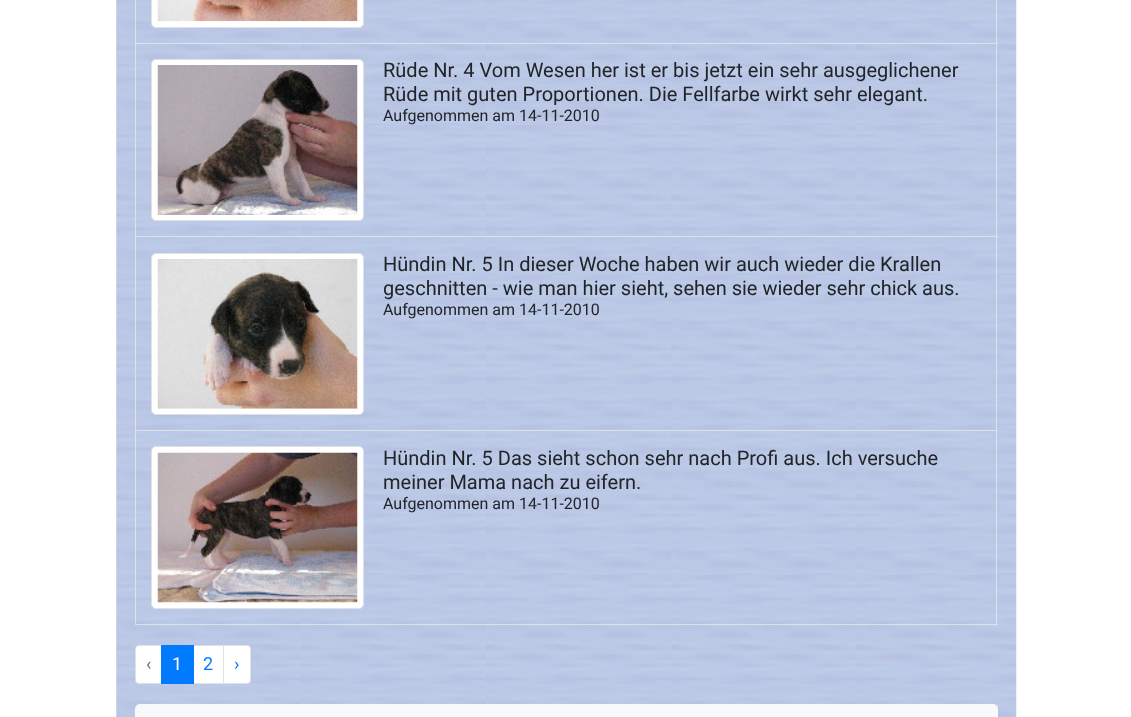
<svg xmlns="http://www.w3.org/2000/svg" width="1131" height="717">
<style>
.a{font:20px Roboto;fill:#212529}
.b{font:16px Roboto;fill:#212529}
.c{font:18px Roboto;fill:#6c757d}
.d{font:18px Roboto;fill:#fff}
.e{font:18px Roboto;fill:#007bff}
</style>
<rect width="100%" height="100%" fill="#fff"/>
<image href="1.png" x="116" y="0" width="901" height="717"/>
<rect fill="#fff" stroke="#dee2e6" x="151.5" y="-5.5" width="212" height="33" rx="4.5"/>
<image href="2.png" x="157" y="0" width="201" height="22"/>
<path fill="#dee2e6" d="M135 43h863v1H135z"/>
<path fill="#dee2e6" d="M135 236h863v1H135z"/>
<path fill="#dee2e6" d="M135 430h863v1H135z"/>
<path fill="#dee2e6" d="M996 430h1v195H996z"/>
<path fill="#dee2e6" d="M996 236h1v195H996z"/>
<path fill="#dee2e6" d="M996 0h1v238H996z"/>
<path fill="#dee2e6" d="M135 624h863v1H135z"/>
<path fill="#dee2e6" d="M135 430h1v195H135z"/>
<path fill="#dee2e6" d="M135 236h1v195H135z"/>
<path fill="#dee2e6" d="M135 0h1v238H135z"/>
<rect fill="#fff" stroke="#dee2e6" x="151.5" y="59.5" width="212" height="161" rx="4.5"/>
<image href="3.png" x="157" y="65" width="201" height="150"/>
<rect fill="#fff" stroke="#dee2e6" x="151.5" y="253.5" width="212" height="161" rx="4.5"/>
<image href="4.png" x="157" y="259" width="201" height="150"/>
<rect fill="#fff" stroke="#dee2e6" x="151.5" y="446.5" width="212" height="162" rx="4.5"/>
<image href="5.png" x="157" y="452" width="201" height="151"/>
<path fill="#fff" stroke="#dee2e6" d="M139 645.5h23.5v38h-23.5c-2 0-3.5-1.5-3.5-3.5v-31c0-2 1.5-3.5 3.5-3.5z"/>
<path fill="#fff" stroke="#dee2e6" d="M193.5 645.5h30v38H193.5z"/>
<path fill="#007bff" d="M161 645h33v39H161z"/>
<path fill="#fff" stroke="#dee2e6" d="M223.5 645.5h23.5c2 0 3.5 1.5 3.5 3.5v31c0 2-1.5 3.5-3.5 3.5h-23.5z"/>
<rect fill="#f8f9fa" x="135" y="704" width="863" height="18" rx="5"/>
<text class="a" x="383" y="77">Rüde Nr. 4 Vom Wesen her ist er bis jetzt ein sehr ausgeglichener</text>
<text class="a" x="383" y="101">Rüde mit guten Proportionen. Die Fellfarbe wirkt sehr elegant.</text>
<text class="b" x="383" y="121">Aufgenommen am 14-11-2010</text>
<text class="a" x="383" y="271">Hündin Nr. 5 In dieser Woche haben wir auch wieder die Krallen</text>
<text class="a" x="383" y="295">geschnitten - wie man hier sieht, sehen sie wieder sehr chick aus.</text>
<text class="b" x="383" y="315">Aufgenommen am 14-11-2010</text>
<text class="a" x="383" y="465">Hündin Nr. 5 Das sieht schon sehr nach Profi aus. Ich versuche</text>
<text class="a" x="383" y="489">meiner Mama nach zu eifern.</text>
<text class="b" x="383" y="509">Aufgenommen am 14-11-2010</text>
<text class="c" x="146" y="670">‹</text>
<text class="d" x="172" y="670">1</text>
<text class="e" x="203" y="670">2</text>
<text class="e" x="234" y="670">›</text>
</svg>
